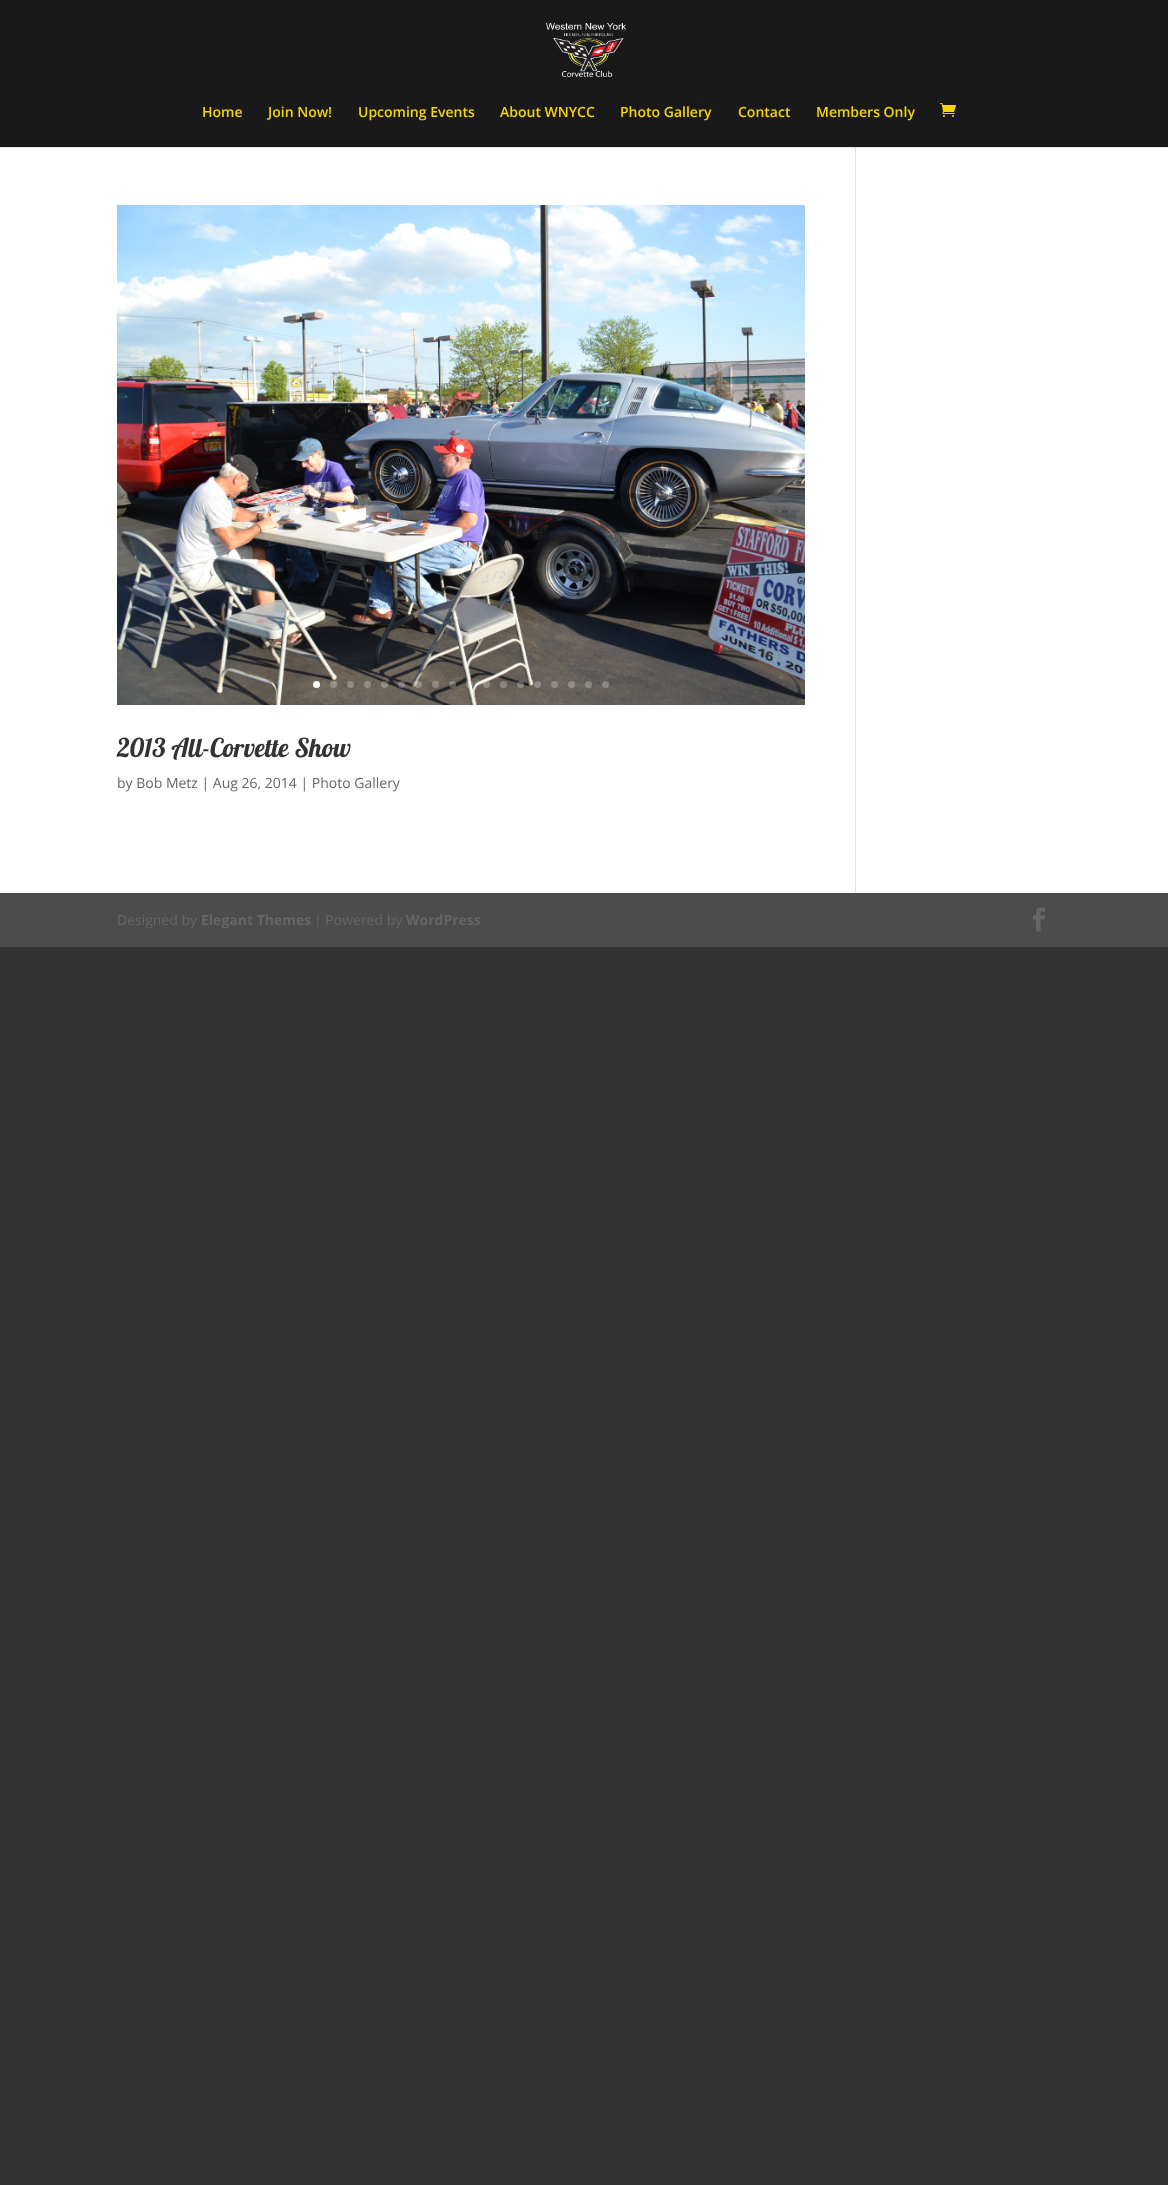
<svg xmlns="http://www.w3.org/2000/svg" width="1168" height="2185">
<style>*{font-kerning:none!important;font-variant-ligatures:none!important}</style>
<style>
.a{font:600 14px Open Sans;fill:#f6d40b}
.b{font:26px Lobster;fill:#333}
.c{font:14px Open Sans;fill:#666}
.d{font:bold 14px Open Sans;fill:#666}
</style>
<rect width="100%" height="100%" fill="#333"/>
<path fill="#191919" d="M0 0h1168v147H0z"/>
<image href="1.png" x="546" y="23" width="80" height="54"/>
<image href="2.png" x="940" y="103" width="16" height="14"/>
<path fill="#fff" d="M0 148h1168v745H0z"/>
<path fill="#e6e6e6" d="M0 147h1168v1H0z"/>
<image href="3.png" x="117" y="205" width="688" height="500"/>
<circle fill="#fff" cx="316.5" cy="684.5" r="3.5"/>
<circle fill="#ffffff40" cx="333.5" cy="684.5" r="3.5"/>
<circle fill="#ffffff40" cx="350.5" cy="684.5" r="3.5"/>
<circle fill="#ffffff40" cx="367.5" cy="684.5" r="3.5"/>
<circle fill="#ffffff40" cx="384.5" cy="684.5" r="3.5"/>
<circle fill="#ffffff40" cx="401.5" cy="684.5" r="3.5"/>
<circle fill="#ffffff40" cx="418.5" cy="684.5" r="3.5"/>
<circle fill="#ffffff40" cx="435.5" cy="684.5" r="3.5"/>
<circle fill="#ffffff40" cx="452.5" cy="684.5" r="3.5"/>
<circle fill="#ffffff40" cx="469.5" cy="684.5" r="3.5"/>
<circle fill="#ffffff40" cx="486.5" cy="684.5" r="3.5"/>
<circle fill="#ffffff40" cx="503.5" cy="684.5" r="3.5"/>
<circle fill="#ffffff40" cx="520.5" cy="684.5" r="3.5"/>
<circle fill="#ffffff40" cx="537.5" cy="684.5" r="3.5"/>
<circle fill="#ffffff40" cx="554.5" cy="684.5" r="3.5"/>
<circle fill="#ffffff40" cx="571.5" cy="684.5" r="3.5"/>
<circle fill="#ffffff40" cx="588.5" cy="684.5" r="3.5"/>
<circle fill="#ffffff40" cx="605.5" cy="684.5" r="3.5"/>
<path fill="#e2e2e2" d="M855 147h1v746H855z"/>
<path fill="#cbcbcb" d="M855 147h1v1H855z"/>
<path fill="#4c4c4c" d="M0 893h1168v54H0z"/>
<image href="4.png" x="1033" y="907" width="12" height="25"/>
<text class="a" x="202" y="117">Home</text>
<text class="a" x="268" y="117">Join Now!</text>
<text class="a" x="358" y="117">Upcoming Events</text>
<text class="a" x="500" y="117">About WNYCC</text>
<text class="a" x="620" y="117">Photo Gallery</text>
<text class="a" x="738" y="117">Contact</text>
<text class="a" x="816" y="117">Members Only</text>
<text class="b" x="117" y="757">2013 All-Corvette Show</text>
<text class="c" x="117" y="788">by Bob Metz | Aug 26, 2014 | Photo Gallery</text>
<text class="c" x="117" y="925">Designed by</text>
<text class="d" x="201" y="925">Elegant Themes</text>
<text class="c" x="314" y="925">| Powered by</text>
<text class="d" x="406" y="925">WordPress</text>
</svg>
